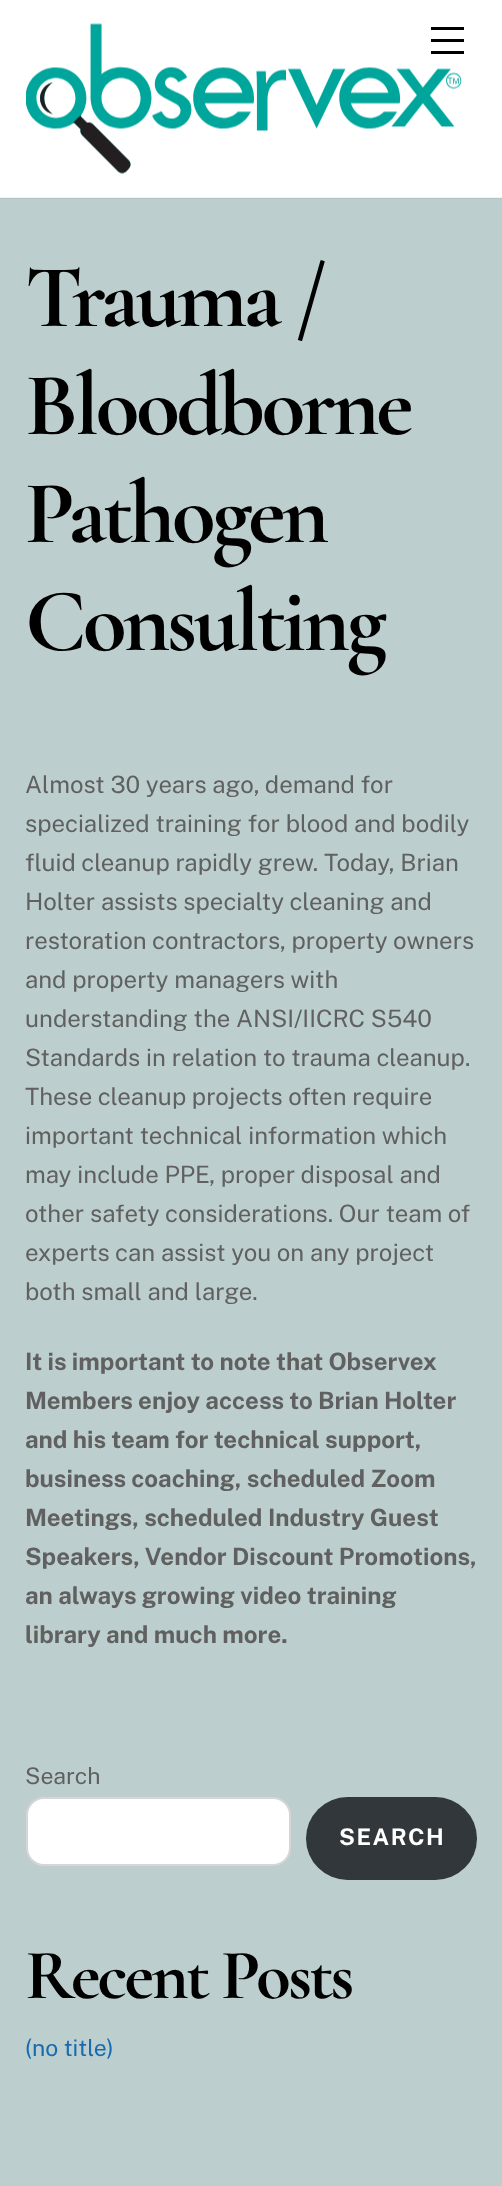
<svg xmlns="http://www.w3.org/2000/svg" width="502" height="2186">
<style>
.a{font:bold 90px Cormorant Garamond;letter-spacing:-3.6px;fill:#000}
.b{font:24px Public Sans;fill:#606060}
.c{font:bold 24px Public Sans;fill:#606060}
.d{font:23px Public Sans;fill:#606060}
.e{font:bold 23px Public Sans;letter-spacing:1.5px;fill:#fff}
.f{font:bold 71.25px Cormorant Garamond;letter-spacing:-2.8px;fill:#000}
.g{font:23px Public Sans;fill:#186bb1}
</style>
<rect width="100%" height="100%" fill="#bccfce"/>
<path fill="#b3c5c4" d="M0 198h502v1H0z"/>
<path fill="#fff" d="M0 0h502v197H0z"/>
<path fill="#f2f2f2" d="M0 197h502v1H0z"/>
<image href="1.png" x="26" y="23" width="436" height="151"/>
<path fill="#000" d="M431 51h33v3H431z"/>
<path fill="#000" d="M431 27h33v3H431z"/>
<path fill="#000" d="M431 39h33v3H431z"/>
<rect fill="#fff" stroke="#d7d5d5" stroke-width="2" x="27" y="1798" width="263" height="67" rx="17"/>
<rect fill="#32373c" x="306" y="1797" width="171" height="83" rx="41.5"/>
<text class="a" x="25" y="326">Trauma /</text>
<text class="a" x="25" y="434">Bloodborne</text>
<text class="a" x="25" y="542">Pathogen</text>
<text class="a" x="25" y="650">Consulting</text>
<text class="b" x="25" y="793">Almost 30 years ago, demand for</text>
<text class="b" x="25" y="832">specialized training for blood and bodily</text>
<text class="b" x="25" y="871">fluid cleanup rapidly grew. Today, Brian</text>
<text class="b" x="25" y="910">Holter assists specialty cleaning and</text>
<text class="b" x="25" y="949">restoration contractors, property owners</text>
<text class="b" x="25" y="988">and property managers with</text>
<text class="b" x="25" y="1027">understanding the ANSI/IICRC S540</text>
<text class="b" x="25" y="1066">Standards in relation to trauma cleanup.</text>
<text class="b" x="25" y="1105">These cleanup projects often require</text>
<text class="b" x="25" y="1144">important technical information which</text>
<text class="b" x="25" y="1183">may include PPE, proper disposal and</text>
<text class="b" x="25" y="1222">other safety considerations. Our team of</text>
<text class="b" x="25" y="1261">experts can assist you on any project</text>
<text class="b" x="25" y="1300">both small and large.</text>
<text class="c" x="25" y="1370">It is important to note that Observex</text>
<text class="c" x="25" y="1409">Members enjoy access to Brian Holter</text>
<text class="c" x="25" y="1448">and his team for technical support,</text>
<text class="c" x="25" y="1487">business coaching, scheduled Zoom</text>
<text class="c" x="25" y="1526">Meetings, scheduled Industry Guest</text>
<text class="c" x="25" y="1565">Speakers, Vendor Discount Promotions,</text>
<text class="c" x="25" y="1604">an always growing video training</text>
<text class="c" x="25" y="1643">library and much more.</text>
<text class="d" x="25" y="1784">Search</text>
<text class="e" x="339" y="1845">SEARCH</text>
<text class="f" x="25" y="1998">Recent Posts</text>
<text class="g" x="25" y="2056">(no title)</text>
</svg>
